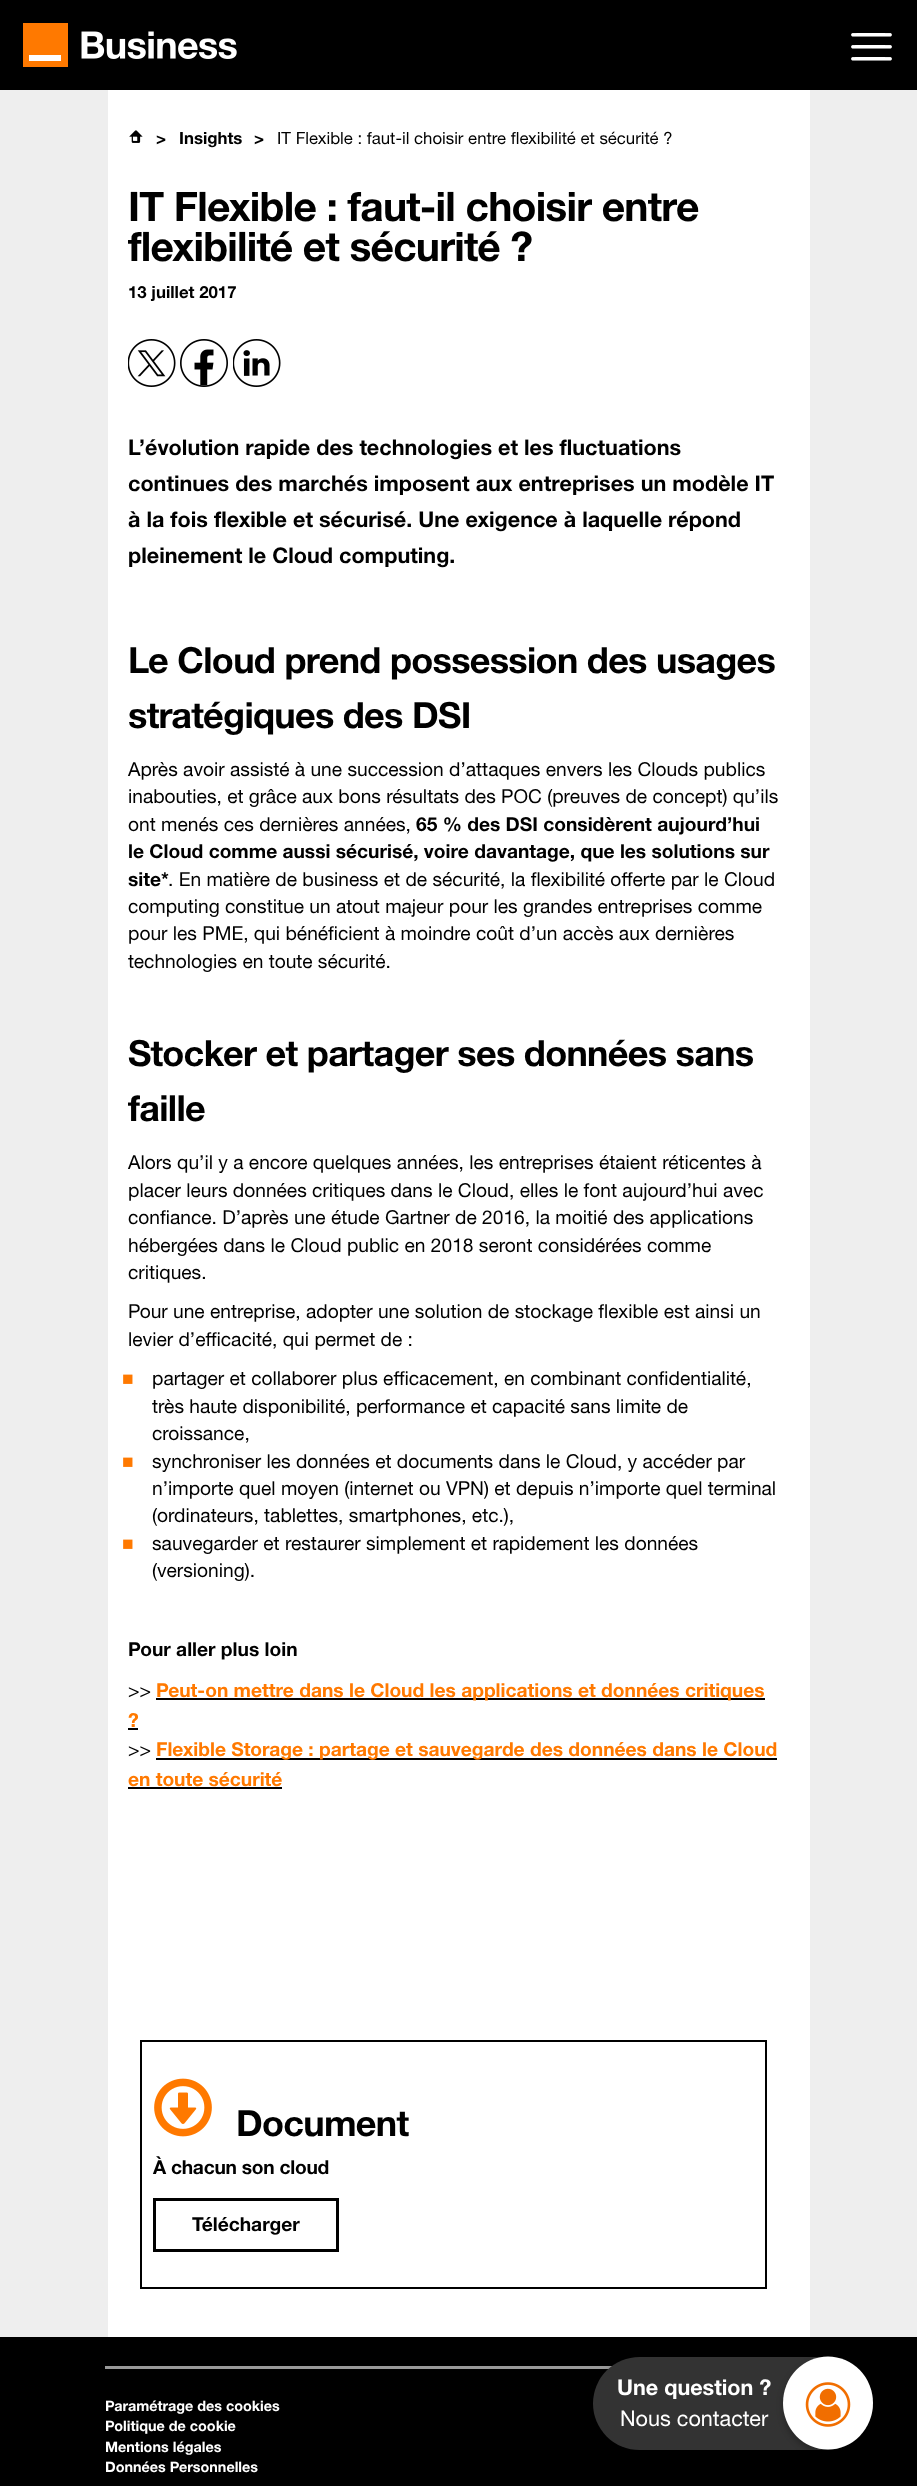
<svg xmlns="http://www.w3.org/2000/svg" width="917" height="2486">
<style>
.a{font:bold 16.8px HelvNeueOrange;fill:#000}
.b{font:16.8px HelvNeueOrange;fill:#000}
.c{font:bold 40.75px HelvNeueOrange;letter-spacing:-0.8px;fill:#000}
.d{font:bold 21.6px HelvNeueOrange;fill:#000}
.e{font:bold 36px HelvNeueOrange;letter-spacing:-0.7px;fill:#000}
.f{font:19.2px HelvNeueOrange;fill:#000}
.g{font:bold 19.2px HelvNeueOrange;fill:#000}
.h{font:19.2px Liberation Sans;fill:#ff7900}
.i{font:bold 19.2px HelvNeueOrange;fill:#ff7900}
.j{font:bold 19.2px HelvNeueOrange;letter-spacing:-0.25px;fill:#000}
.k{font:bold 14.4px HelvNeueOrange;fill:#fff}
.l{font:bold 21.6px HelvNeueOrange;fill:#fff}
.m{font:21.6px HelvNeueOrange;fill:#fff}
</style>
<rect width="100%" height="100%" fill="#eee"/>
<path fill="#000" d="M0 0h917v90H0z"/>
<image href="1.png" x="23" y="23" width="214" height="44"/>
<image href="2.png" x="851" y="33" width="41" height="28"/>
<path fill="#fff" d="M108 90h702v2247H108z"/>
<image href="3.png" x="129" y="130" width="14" height="13"/>
<image href="4.png" x="128" y="339" width="48" height="48"/>
<image href="5.png" x="180" y="339" width="48" height="48"/>
<image href="6.png" x="233" y="339" width="48" height="48"/>
<path fill="#000" d="M156 1698h609v2H156z"/>
<path fill="#000" d="M128 1728h10v2H128z"/>
<path fill="#000" d="M156 1758h621v2H156z"/>
<path fill="#000" d="M128 1787h154v2H128z"/>
<path fill="none" stroke="#000" stroke-width="2" d="M141 2041h625v247H141z"/>
<image href="7.png" x="154" y="2078" width="58" height="59"/>
<path fill="none" stroke="#000" stroke-width="3" d="M154.5 2199.5h183v51H154.5z"/>
<path fill="#000" d="M0 2337h917v149H0z"/>
<path fill="#999" d="M105 2366h507v1H105z"/>
<path fill="#999" d="M105 2367h506v2H105z"/>
<rect fill="#00000040" filter="blur(3px)" x="593" y="2360" width="280" height="93" rx="46.5"/>
<rect fill="#333" x="593" y="2357" width="280" height="93" rx="46.5"/>
<rect fill="#00000040" filter="blur(3px)" x="783" y="2360" width="90" height="93" rx="45"/>
<ellipse fill="#fff" cx="828" cy="2403" rx="45" ry="46.5"/>
<image href="8.png" x="805" y="2382" width="46" height="45"/>
<text class="a" x="156" y="144">&gt;</text>
<text class="a" x="179" y="144">Insights</text>
<text class="a" x="254" y="144">&gt;</text>
<text class="b" x="277" y="144">IT Flexible : faut-il choisir entre flexibilité et sécurité ?</text>
<text class="c" x="128" y="221">IT Flexible : faut-il choisir entre</text>
<text class="c" x="128" y="261">flexibilité et sécurité ?</text>
<text class="a" x="128" y="298">13 juillet 2017</text>
<text class="d" x="128" y="455">L’évolution rapide des technologies et les fluctuations</text>
<text class="d" x="128" y="491">continues des marchés imposent aux entreprises un modèle IT</text>
<text class="d" x="128" y="527">à la fois flexible et sécurisé. Une exigence à laquelle répond</text>
<text class="d" x="128" y="563">pleinement le Cloud computing.</text>
<text class="e" x="128" y="673">Le Cloud prend possession des usages</text>
<text class="e" x="128" y="728">stratégiques des DSI</text>
<text class="f" x="128" y="776">Après avoir assisté à une succession d’attaques envers les Clouds publics</text>
<text class="f" x="128" y="803">inabouties, et grâce aux bons résultats des POC (preuves de concept) qu’ils</text>
<text class="f" x="128" y="831">ont menés ces dernières années,</text>
<text class="g" x="416" y="831">65 % des DSI considèrent aujourd’hui</text>
<text class="g" x="128" y="858">le Cloud comme aussi sécurisé, voire davantage, que les solutions sur</text>
<text class="g" x="128" y="886">site*</text>
<text class="f" x="168" y="886">. En matière de business et de sécurité, la flexibilité offerte par le Cloud</text>
<text class="f" x="128" y="913">computing constitue un atout majeur pour les grandes entreprises comme</text>
<text class="f" x="128" y="940">pour les PME, qui bénéficient à moindre coût d’un accès aux dernières</text>
<text class="f" x="128" y="968">technologies en toute sécurité.</text>
<text class="e" x="128" y="1066">Stocker et partager ses données sans</text>
<text class="e" x="128" y="1121">faille</text>
<text class="f" x="128" y="1169">Alors qu’il y a encore quelques années, les entreprises étaient réticentes à</text>
<text class="f" x="128" y="1197">placer leurs données critiques dans le Cloud, elles le font aujourd’hui avec</text>
<text class="f" x="128" y="1224">confiance. D’après une étude Gartner de 2016, la moitié des applications</text>
<text class="f" x="128" y="1252">hébergées dans le Cloud public en 2018 seront considérées comme</text>
<text class="f" x="128" y="1279">critiques.</text>
<text class="f" x="128" y="1318">Pour une entreprise, adopter une solution de stockage flexible est ainsi un</text>
<text class="f" x="128" y="1346">levier d’efficacité, qui permet de :</text>
<text class="h" x="122" y="1385">■</text>
<text class="f" x="152" y="1385">partager et collaborer plus efficacement, en combinant confidentialité,</text>
<text class="f" x="152" y="1413">très haute disponibilité, performance et capacité sans limite de</text>
<text class="f" x="152" y="1440">croissance,</text>
<text class="h" x="122" y="1468">■</text>
<text class="f" x="152" y="1468">synchroniser les données et documents dans le Cloud, y accéder par</text>
<text class="f" x="152" y="1495">n’importe quel moyen (internet ou VPN) et depuis n’importe quel terminal</text>
<text class="f" x="152" y="1522">(ordinateurs, tablettes, smartphones, etc.),</text>
<text class="h" x="122" y="1550">■</text>
<text class="f" x="152" y="1550">sauvegarder et restaurer simplement et rapidement les données</text>
<text class="f" x="152" y="1577">(versioning).</text>
<text class="g" x="128" y="1656">Pour aller plus loin</text>
<text class="f" x="128" y="1697">&gt;&gt;</text>
<text class="i" x="156" y="1697">Peut-on mettre dans le Cloud les applications et données critiques</text>
<text class="i" x="128" y="1727">?</text>
<text class="f" x="128" y="1756">&gt;&gt;</text>
<text class="i" x="156" y="1756">Flexible Storage : partage et sauvegarde des données dans le Cloud</text>
<text class="i" x="128" y="1786">en toute sécurité</text>
<text class="e" x="236" y="2136">Document</text>
<text class="j" x="153" y="2174">À chacun son cloud</text>
<text class="g" x="192" y="2231">Télécharger</text>
<text class="k" x="105" y="2411">Paramétrage des cookies</text>
<text class="k" x="105" y="2431">Politique de cookie</text>
<text class="k" x="105" y="2452">Mentions légales</text>
<text class="k" x="105" y="2472">Données Personnelles</text>
<text class="l" x="617" y="2395">Une question ?</text>
<text class="m" x="620" y="2426">Nous contacter</text>
</svg>
